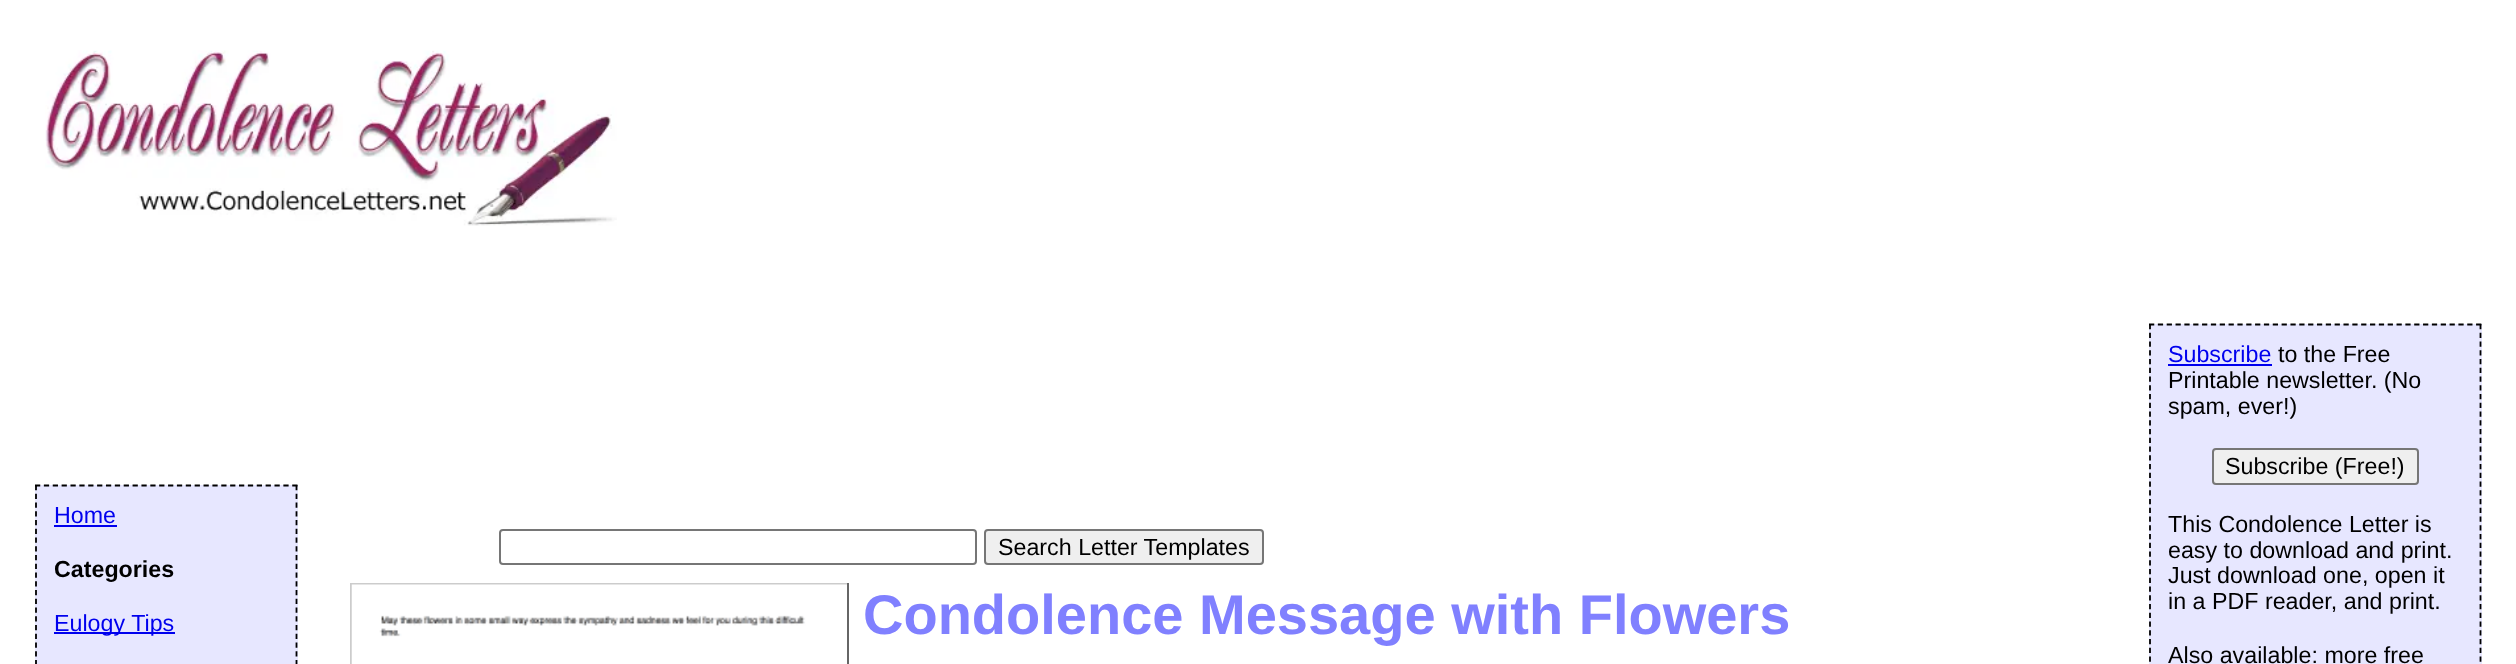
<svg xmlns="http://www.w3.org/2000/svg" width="2516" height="664">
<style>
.a{font:23.25px Liberation Sans;fill:#00e}
.b{font:bold 23.25px Liberation Sans;fill:#000}
.c{font:23.25px Liberation Sans;fill:#000}
.d{font:bold 56px Liberation Sans;fill:#8080ff}
</style>
<rect width="100%" height="100%" fill="#fff"/>
<image href="1.png" x="45" y="50" width="572" height="176"/>
<path fill="#e7e7ff" d="M35 485h263v179H35z"/>
<path fill="none" stroke="#000" stroke-width="1.8" stroke-dasharray="5.25 3.62" d="M35 485.5h262.5"/>
<path fill="none" stroke="#000" stroke-width="1.8" stroke-dasharray="5.25 3.5" d="M296.5 485v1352.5"/>
<path fill="none" stroke="#000" stroke-width="1.8" stroke-dasharray="5.25 3.5" d="M36 485v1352.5"/>
<path fill="#00e" d="M54 525h63v2H54z"/>
<path fill="#00e" d="M54 632h121v2H54z"/>
<rect fill="none" stroke="#767676" stroke-width="2" x="500" y="530" width="476" height="34" rx="3"/>
<rect fill="#efefef" stroke="#767676" stroke-width="2" x="985" y="530" width="278" height="34" rx="3"/>
<path fill="#e7e7ff" d="M2149 324h333v340H2149z"/>
<path fill="none" stroke="#000" stroke-width="1.8" stroke-dasharray="5.25 3.59" d="M2149 324.5h332.5"/>
<path fill="none" stroke="#000" stroke-width="1.8" stroke-dasharray="5.25 3.5" d="M2480.5 324v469"/>
<path fill="none" stroke="#000" stroke-width="1.8" stroke-dasharray="5.25 3.5" d="M2150 324v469"/>
<path fill="#00e" d="M2168 364h104v2H2168z"/>
<rect fill="#efefef" stroke="#767676" stroke-width="2" x="2213" y="449" width="205" height="35" rx="3"/>
<path fill="#ccc" d="M350 583h499v2H350z"/>
<path fill="#666" d="M847 583h2v81H847z"/>
<path fill="#ccc" d="M350 583h2v81H350z"/>
<image href="2.png" x="351" y="584" width="496" height="80"/>
<text class="a" x="54" y="523">Home</text>
<text class="b" x="54" y="577">Categories</text>
<text class="a" x="54" y="631">Eulogy Tips</text>
<text class="c" x="998" y="555">Search Letter Templates</text>
<text class="a" x="2168" y="362">Subscribe</text>
<text class="c" x="2278" y="362">to the Free</text>
<text class="c" x="2168" y="388">Printable newsletter. (No</text>
<text class="c" x="2168" y="414">spam, ever!)</text>
<text class="c" x="2225" y="474">Subscribe (Free!)</text>
<text class="c" x="2168" y="532">This Condolence Letter is</text>
<text class="c" x="2168" y="558">easy to download and print.</text>
<text class="c" x="2168" y="583">Just download one, open it</text>
<text class="c" x="2168" y="609">in a PDF reader, and print.</text>
<text class="c" x="2168" y="663">Also available: more free</text>
<text class="d" x="863" y="634">Condolence Message with Flowers</text>
</svg>
